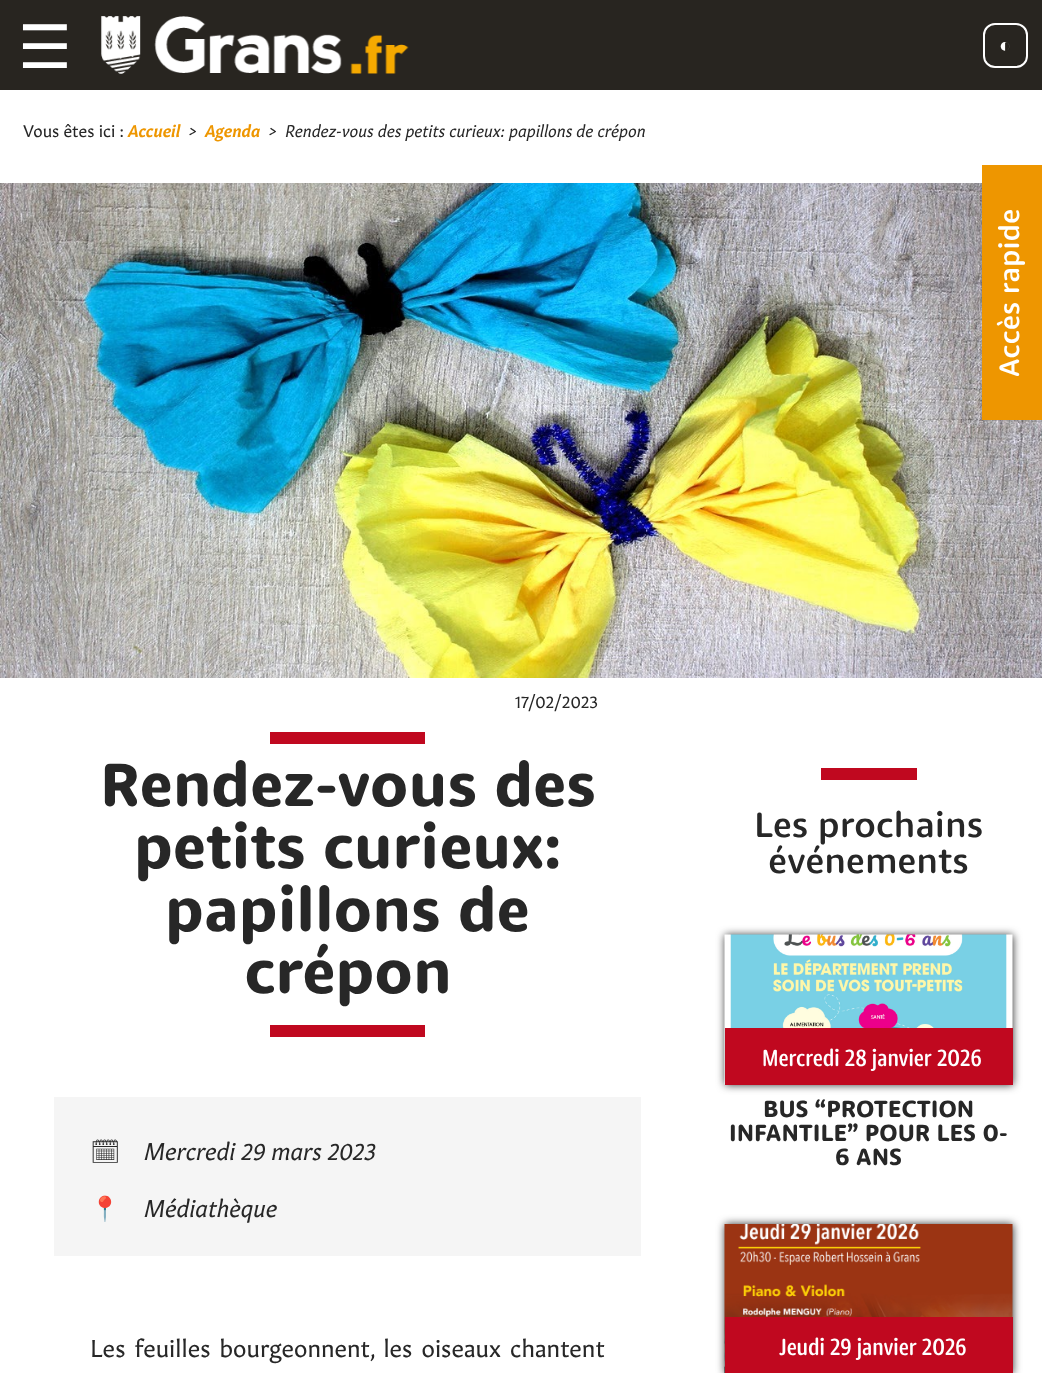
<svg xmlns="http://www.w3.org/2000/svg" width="1042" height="1373">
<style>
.a{font:60px DejaVu Sans;fill:#fff}
.b{font:20px Liberation Sans;fill:#fff}
.c{font:16.8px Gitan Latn;fill:#272727}
.d{font:italic 600 16.8px Gitan Latn;fill:#ee9600}
.e{font:italic 16.8px Gitan Latn;fill:#272727}
.f{font:bold 62.5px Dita;fill:#272727}
.g{font:24px Noto Emoji;fill:#272727}
.h{font:italic 24px Gitan Latn;fill:#272727}
.i{font:24px Noto Color Emoji;fill:#272727}
.j{font:24px Gitan Latn;fill:#272727}
.k{font:500 36px Dita;fill:#272727}
.l{font:500 24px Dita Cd;fill:#fff}
.m{font:bold 24px Dita;fill:#272727}
.n{font:500 28.75px Dita;fill:#fff}
</style>
<rect width="100%" height="100%" fill="#fff"/>
<path fill="#282520" d="M0 0h1042v90H0z"/>
<image href="1.png" x="101" y="16" width="308" height="58"/>
<rect fill="none" stroke="#fff" stroke-width="2" x="984" y="24" width="43" height="43" rx="11"/>
<image href="2.png" x="0" y="183" width="1042" height="495"/>
<path fill="#c0081f" d="M270 732h155v12H270z"/>
<path fill="#c0081f" d="M270 1025h155v12H270z"/>
<path fill="#f5f5f5" d="M54 1097h587v159H54z"/>
<path fill="#c0081f" d="M821 768h96v12H821z"/>
<path fill="#333" filter="blur(4px)" d="M725 935h288v150H725z"/>
<image href="3.png" x="724" y="934" width="289" height="151"/>
<path fill="#c0081f" d="M725 1028h288v57H725z"/>
<path fill="#333" filter="blur(4px)" d="M725 1224h288v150H725z"/>
<image href="4.png" x="724" y="1224" width="289" height="149"/>
<path fill="#c0081f" d="M725 1317h288v56H725z"/>
<path fill="#ee9600" d="M982 165h60v255H982z"/>
<text class="a" x="18" y="68">☰</text>
<text class="b" x="999" y="52">◐</text>
<text class="c" x="23" y="137">Vous êtes ici :</text>
<text class="d" x="128" y="137">Accueil</text>
<text class="e" x="188" y="137">&gt;</text>
<text class="d" x="205" y="137">Agenda</text>
<text class="e" x="268" y="137">&gt;</text>
<text class="e" x="285" y="137">Rendez-vous des petits curieux: papillons de crépon</text>
<text class="c" x="515" y="708">17/02/2023</text>
<text class="f" x="100" y="806">Rendez-vous des</text>
<text class="f" x="134" y="868">petits curieux:</text>
<text class="f" x="165" y="931">papillons de</text>
<text class="f" x="244" y="993">crépon</text>
<text class="g" x="90" y="1160">🗓</text>
<text class="h" x="144" y="1160">Mercredi 29 mars 2023</text>
<text class="i" x="90" y="1217">📍</text>
<text class="h" x="144" y="1217">Médiathèque</text>
<text class="j" x="90" y="1357" word-spacing="3">Les feuilles bourgeonnent, les oiseaux chantent</text>
<text class="k" x="754" y="837">Les prochains</text>
<text class="k" x="768" y="873">événements</text>
<text class="l" x="762" y="1066">Mercredi 28 janvier 2026</text>
<text class="m" x="763" y="1117">BUS “PROTECTION</text>
<text class="m" x="729" y="1141">INFANTILE” POUR LES 0-</text>
<text class="m" x="835" y="1165">6 ANS</text>
<text class="l" x="779" y="1355">Jeudi 29 janvier 2026</text>
<text class="n" x="1019" y="377" transform="rotate(-90 1019 377)">Accès rapide</text>
</svg>
